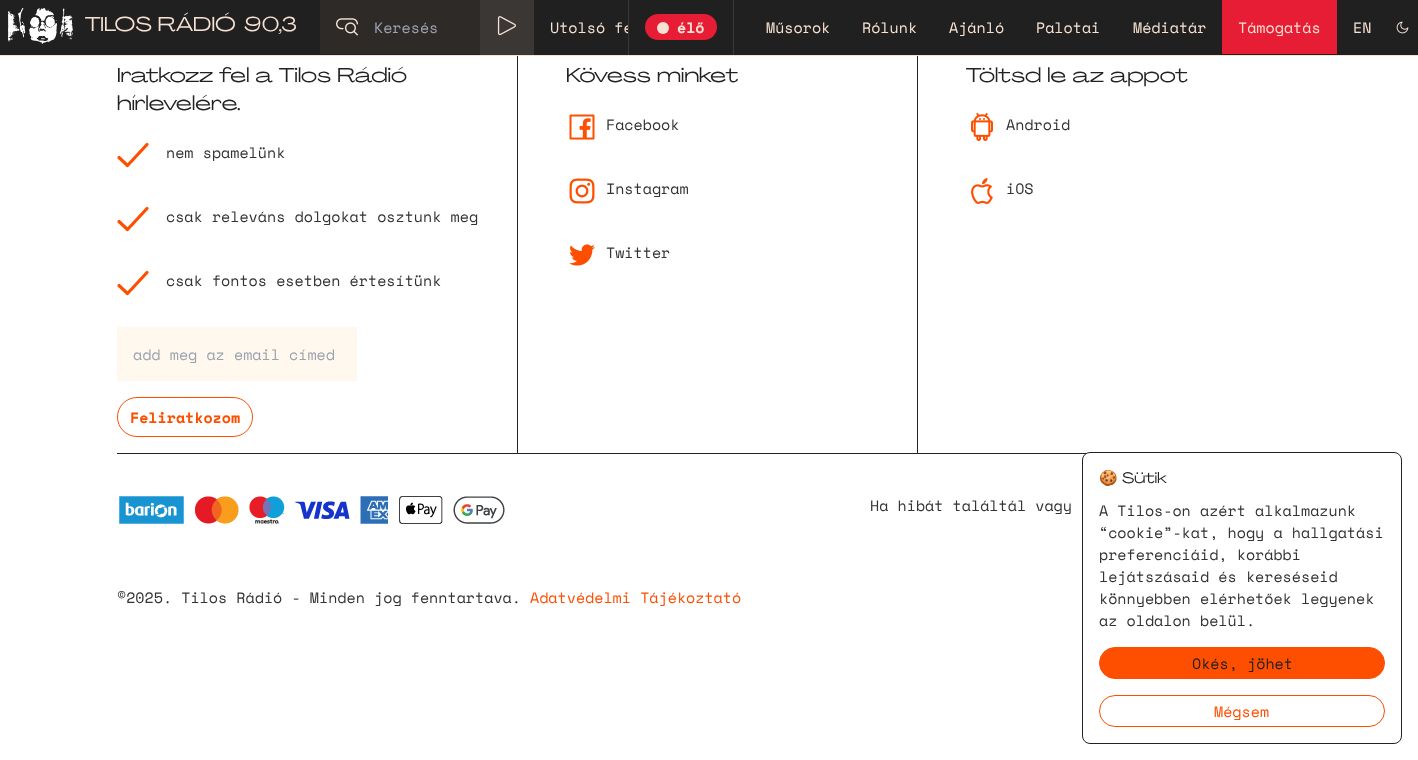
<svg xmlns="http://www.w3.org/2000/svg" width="1418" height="760">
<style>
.a{font:20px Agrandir;fill:#f7e1d2}
.b{font:15px Space Mono;fill:#9ca3af}
.c{font:15px Space Mono;fill:#f7e1d2}
.d{font:bold 15px Space Mono;fill:#f7e1d2}
.e{font:20px Agrandir;fill:#222}
.f{font:15px Space Mono;fill:#333}
.g{font:bold 15px Space Mono;fill:#fe4e00}
.h{font:15px Space Mono;fill:#fe4e00}
.i{font:15px Noto Color Emoji;fill:#222}
.j{font:15px Agrandir;fill:#222}
.k{font:15px Space Mono;fill:#222}
</style>
<defs>
<clipPath id="clip1"><path d="M534 0h94v55H534z"/></clipPath>
</defs>
<rect width="100%" height="100%" fill="#fff"/>
<path fill="#202020" d="M0 0h1418v55H0z"/>
<path fill="#f7e1d2" d="M0 55h1418v1H0z"/>
<image href="1.png" x="8" y="8" width="65" height="36"/>
<path fill="#2e2a28" d="M320 0h160v54H320z"/>
<image href="2.png" x="336" y="18" width="22" height="18"/>
<path fill="#3b3735" d="M733 0h1v55H733z"/>
<path fill="#3b3735" d="M480 0h1v55H480z"/>
<path fill="#3b3735" d="M481 0h53v55H481z"/>
<image href="3.png" x="497" y="16" width="19" height="20"/>
<path fill="#3b3735" d="M628 0h1v55H628z"/>
<rect fill="#e71d36" x="645" y="14" width="72" height="26" rx="13"/>
<circle fill="#f7e1d2" cx="663" cy="28" r="6"/>
<path fill="#e71d36" d="M1222 0h115v54H1222z"/>
<image href="4.png" x="1396" y="21" width="13" height="13"/>
<path fill="#222" d="M117 453h970v1H117z"/>
<path fill="none" stroke="#fe4e00" stroke-width="3.2" stroke-linecap="round" stroke-linejoin="round" d="M147 144.5l-19.5 21l-8.5-8"/>
<path fill="none" stroke="#fe4e00" stroke-width="3.2" stroke-linecap="round" stroke-linejoin="round" d="M147 208.5l-19.5 21l-8.5-8"/>
<path fill="none" stroke="#fe4e00" stroke-width="3.2" stroke-linecap="round" stroke-linejoin="round" d="M147 272.5l-19.5 21l-8.5-8"/>
<path fill="#fff8ee" d="M117 327h240v54H117z"/>
<rect fill="none" stroke="#fe4e00" x="117.5" y="397.5" width="135" height="39" rx="19.5"/>
<path fill="#222" d="M517 56h1v397H517z"/>
<image href="5.png" x="569" y="114" width="26" height="26"/>
<image href="6.png" x="569" y="178" width="26" height="26"/>
<image href="7.png" x="569" y="244" width="26" height="22"/>
<path fill="#222" d="M917 56h1v397H917z"/>
<image href="8.png" x="971" y="113" width="22" height="28"/>
<image href="9.png" x="971" y="178" width="22" height="26"/>
<image href="10.png" x="119" y="496" width="386" height="28"/>
<rect fill="#fff" stroke="#222" x="1082.5" y="452.5" width="319" height="291" rx="7.5"/>
<rect fill="#fe4e00" stroke="#fe4e00" x="1099.5" y="647.5" width="285" height="31" rx="15.5"/>
<rect fill="none" stroke="#fe4e00" x="1099.5" y="695.5" width="285" height="31" rx="15.5"/>
<text class="a" x="85" y="31">TILOS RÁDIÓ</text>
<text class="a" x="244" y="31">90,3</text>
<text class="b" x="374" y="33">Keresés</text>
<g clip-path="url(#clip1)">
<text class="c" x="550" y="33">Utolsó fe</text>
</g>
<text class="d" x="677" y="33">élő</text>
<text class="c" x="766" y="33">Műsorok</text>
<text class="c" x="862" y="33">Rólunk</text>
<text class="c" x="949" y="33">Ajánló</text>
<text class="c" x="1036" y="33">Palotai</text>
<text class="c" x="1133" y="33">Médiatár</text>
<text class="c" x="1238" y="33">Támogatás</text>
<text class="c" x="1353" y="33">EN</text>
<text class="e" x="117" y="82">Iratkozz fel a Tilos Rádió</text>
<text class="e" x="117" y="110">hírlevelére.</text>
<text class="f" x="166" y="158">nem spamelünk</text>
<text class="f" x="166" y="222">csak releváns dolgokat osztunk meg</text>
<text class="f" x="166" y="286">csak fontos esetben értesítünk</text>
<text class="b" x="133" y="360">add meg az email címed</text>
<text class="g" x="130" y="423">Feliratkozom</text>
<text class="e" x="566" y="82">Kövess minket</text>
<text class="f" x="606" y="130">Facebook</text>
<text class="f" x="606" y="194">Instagram</text>
<text class="f" x="606" y="258">Twitter</text>
<text class="e" x="966" y="82">Töltsd le az appot</text>
<text class="f" x="1006" y="130">Android</text>
<text class="f" x="1006" y="194">iOS</text>
<text class="f" x="870" y="511">Ha hibát találtál vagy</text>
<text class="f" x="117" y="603">©2025. Tilos Rádió - Minden jog fenntartava.</text>
<text class="h" x="530" y="603">Adatvédelmi Tájékoztató</text>
<text class="i" x="1099" y="483">🍪</text>
<text class="j" x="1122" y="483">Sütik</text>
<text class="f" x="1099" y="516">A Tilos-on azért alkalmazunk</text>
<text class="f" x="1099" y="538">“cookie”-kat, hogy a hallgatási</text>
<text class="f" x="1099" y="560">preferenciáid, korábbi</text>
<text class="f" x="1099" y="582">lejátszásaid és kereséseid</text>
<text class="f" x="1099" y="604">könnyebben elérhetőek legyenek</text>
<text class="f" x="1099" y="626">az oldalon belül.</text>
<text class="k" x="1192" y="669">Okés, jöhet</text>
<text class="h" x="1214" y="717">Mégsem</text>
</svg>
